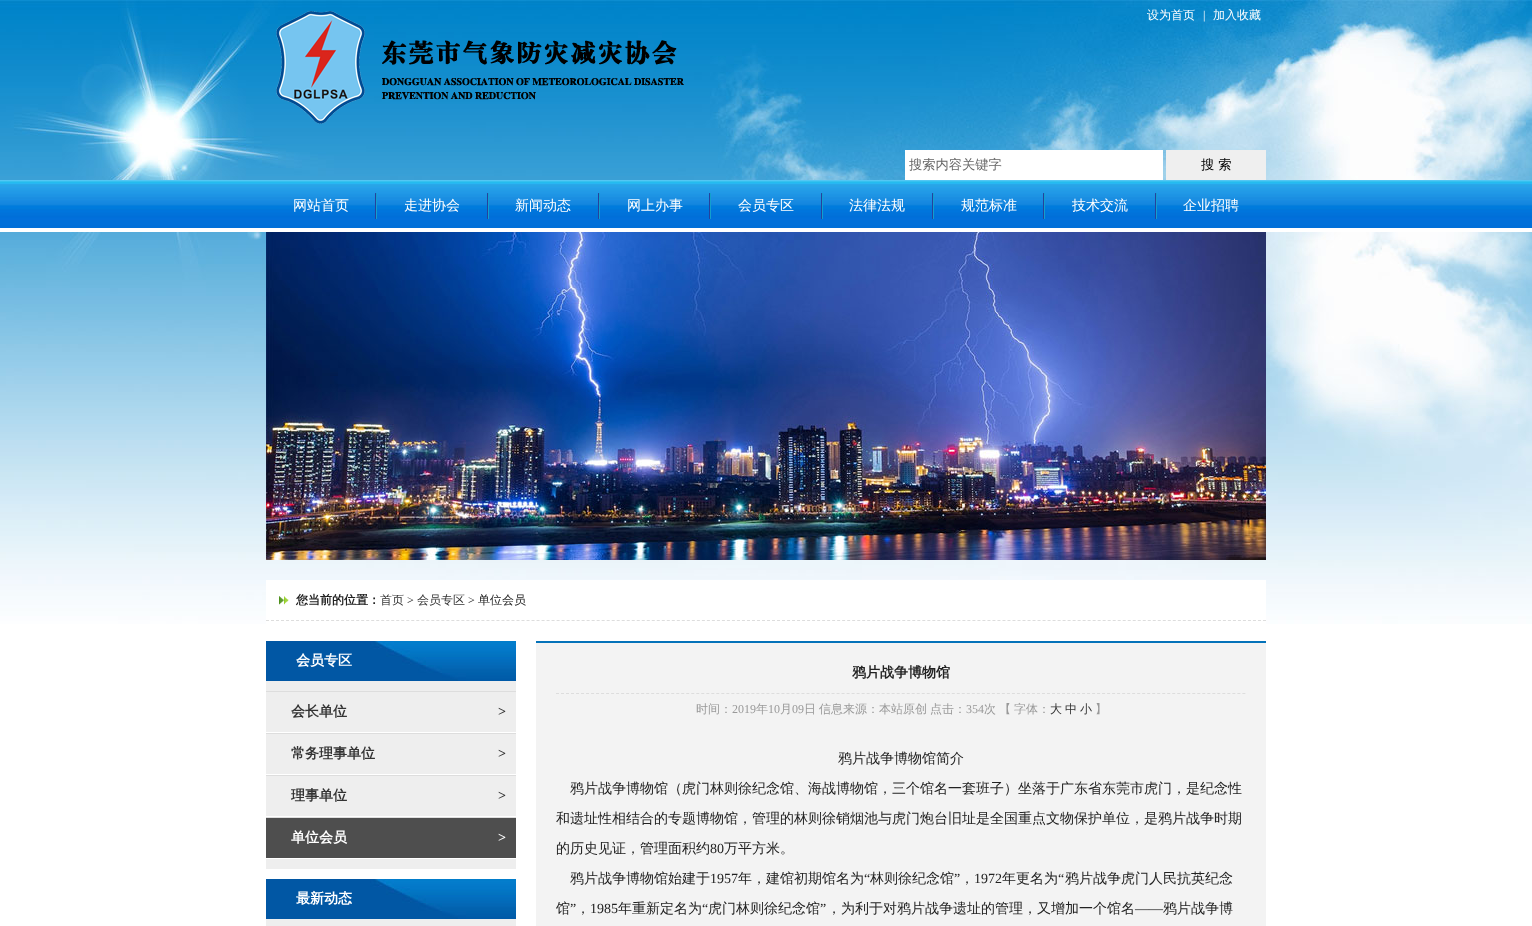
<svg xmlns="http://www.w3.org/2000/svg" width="1532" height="926">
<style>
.a{font:500 12px WenQuanYi Zen Hei;fill:#fff}
.b{font:12px Liberation Serif;fill:#fff}
.c{font:500 13.25px WenQuanYi Zen Hei;fill:#666}
.d{font:500 13.25px WenQuanYi Zen Hei;fill:#000}
.e{font:500 14px WenQuanYi Zen Hei;fill:#fff}
.f{font:bold 12px WenQuanYi Zen Hei;fill:#222}
.g{font:500 12px WenQuanYi Zen Hei;fill:#333}
.h{font:12px Liberation Serif;fill:#222}
.i{font:500 12px WenQuanYi Zen Hei;fill:#222}
.j{font:bold 14px WenQuanYi Zen Hei;fill:#fff}
.k{font:bold 14px WenQuanYi Zen Hei;fill:#333}
.l{font:bold 14px Liberation Serif;fill:#333}
.m{font:bold 14px Liberation Serif;fill:#fff}
.n{font:bold 14px WenQuanYi Zen Hei;fill:#222}
.o{font:500 12px WenQuanYi Zen Hei;fill:#999}
.p{font:12px Liberation Serif;fill:#999}
.q{font:500 14px WenQuanYi Zen Hei;fill:#222}
.r{font:14px Liberation Serif;fill:#222}
</style>
<rect width="100%" height="100%" fill="#fff"/>
<image href="1.png" x="0" y="0" width="1532" height="624"/>
<image href="2.png" x="276" y="11" width="408" height="113"/>
<path fill="#fff" d="M905 150h258v30H905z"/>
<path fill="#efefef" d="M1166 150h100v30H1166z"/>
<image href="3.png" x="0" y="180" width="1532" height="52"/>
<image href="4.png" x="375" y="193" width="2" height="26"/>
<image href="4.png" x="487" y="193" width="2" height="26"/>
<image href="4.png" x="598" y="193" width="2" height="26"/>
<image href="4.png" x="709" y="193" width="2" height="26"/>
<image href="4.png" x="821" y="193" width="2" height="26"/>
<image href="4.png" x="932" y="193" width="2" height="26"/>
<image href="4.png" x="1043" y="193" width="2" height="26"/>
<image href="4.png" x="1155" y="193" width="2" height="26"/>
<image href="5.png" x="266" y="232" width="1000" height="328"/>
<path fill="#fff" d="M266 580h1000v44H266z"/>
<path fill="none" stroke="#ddd" stroke-dasharray="3 2.01" d="M266 620.5h1000"/>
<image href="6.png" x="279" y="596" width="10" height="9"/>
<path fill="#eee" d="M266 681h250v245H266z"/>
<image href="7.png" x="266" y="641" width="250" height="40"/>
<path fill="#ddd" d="M266 691h250v1H266z"/>
<path fill="#fff" d="M266 732h250v1H266z"/>
<path fill="#ddd" d="M266 733h250v1H266z"/>
<path fill="#fff" d="M266 774h250v1H266z"/>
<path fill="#ddd" d="M266 775h250v1H266z"/>
<path fill="#fff" d="M266 816h250v1H266z"/>
<path fill="#ddd" d="M266 817h250v1H266z"/>
<path fill="#fff" d="M266 858h250v1H266z"/>
<path fill="#4e4e4e" d="M266 818h250v40H266z"/>
<path fill="#fff" d="M266 869h250v10H266z"/>
<image href="7.png" x="266" y="879" width="250" height="40"/>
<path fill="#f3f3f3" d="M536 643h730v283H536z"/>
<path fill="#0472b9" d="M536 641h730v2H536z"/>
<path fill="none" stroke="#ddd" stroke-dasharray="3 2.01" d="M556 693.5h690"/>
<text class="a" x="1147" y="19">设为首页</text>
<text class="b" x="1203" y="19">|</text>
<text class="a" x="1213" y="19">加入收藏</text>
<text class="c" x="909" y="169">搜索内容关键字</text>
<text class="d" x="1201" y="169">搜 索</text>
<text class="e" x="293" y="210">网站首页</text>
<text class="e" x="404" y="210">走进协会</text>
<text class="e" x="515" y="210">新闻动态</text>
<text class="e" x="627" y="210">网上办事</text>
<text class="e" x="738" y="210">会员专区</text>
<text class="e" x="849" y="210">法律法规</text>
<text class="e" x="961" y="210">规范标准</text>
<text class="e" x="1072" y="210">技术交流</text>
<text class="e" x="1183" y="210">企业招聘</text>
<text class="f" x="296" y="604">您当前的位置：</text>
<text class="g" x="380" y="604">首页</text>
<text class="h" x="407" y="604">&gt;</text>
<text class="g" x="417" y="604">会员专区</text>
<text class="h" x="468" y="604">&gt;</text>
<text class="i" x="478" y="604">单位会员</text>
<text class="j" x="296" y="665">会员专区</text>
<text class="k" x="291" y="716">会长单位</text>
<text class="l" x="498" y="716">&gt;</text>
<text class="k" x="291" y="758">常务理事单位</text>
<text class="l" x="498" y="758">&gt;</text>
<text class="k" x="291" y="800">理事单位</text>
<text class="l" x="498" y="800">&gt;</text>
<text class="j" x="291" y="842">单位会员</text>
<text class="m" x="498" y="842">&gt;</text>
<text class="j" x="296" y="903">最新动态</text>
<text class="n" x="852" y="677">鸦片战争博物馆</text>
<text class="o" x="696" y="713">时间：</text>
<text class="p" x="732" y="713">2019</text>
<text class="o" x="756" y="713">年</text>
<text class="p" x="768" y="713">10</text>
<text class="o" x="780" y="713">月</text>
<text class="p" x="792" y="713">09</text>
<text class="o" x="804" y="713">日</text>
<text class="o" x="819" y="713">信息来源：本站原创</text>
<text class="o" x="930" y="713">点击：</text>
<text class="p" x="966" y="713">354</text>
<text class="o" x="984" y="713">次</text>
<text class="o" x="999" y="713">【</text>
<text class="o" x="1014" y="713">字体：</text>
<text class="g" x="1050" y="713">大</text>
<text class="g" x="1065" y="713">中</text>
<text class="g" x="1080" y="713">小</text>
<text class="o" x="1095" y="713">】</text>
<text class="q" x="838" y="763">鸦片战争博物馆简介</text>
<text class="q" x="570" y="793">鸦片战争博物馆（虎门林则徐纪念馆、海战博物馆，三个馆名一套班子）坐落于广东省东莞市虎门，是纪念性</text>
<text class="q" x="556" y="823">和遗址性相结合的专题博物馆，管理的林则徐销烟池与虎门炮台旧址是全国重点文物保护单位，是鸦片战争时期</text>
<text class="q" x="556" y="853">的历史见证，管理面积约</text>
<text class="r" x="710" y="853">80</text>
<text class="q" x="724" y="853">万平方米。</text>
<text class="q" x="570" y="883">鸦片战争博物馆始建于</text>
<text class="r" x="710" y="883">1957</text>
<text class="q" x="738" y="883">年，建馆初期馆名为</text>
<text class="r" x="864" y="883">“</text>
<text class="q" x="870" y="883">林则徐纪念馆</text>
<text class="r" x="954" y="883">”</text>
<text class="r" x="974" y="883">1972</text>
<text class="q" x="1002" y="883">年更名为</text>
<text class="r" x="1058" y="883">“</text>
<text class="q" x="1065" y="883">鸦片战争虎门人民抗英纪念</text>
<text class="q" x="960" y="883">，</text>
<text class="q" x="556" y="913">馆</text>
<text class="r" x="570" y="913">”</text>
<text class="r" x="590" y="913">1985</text>
<text class="q" x="618" y="913">年重新定名为</text>
<text class="r" x="702" y="913">“</text>
<text class="q" x="708" y="913">虎门林则徐纪念馆</text>
<text class="r" x="820" y="913">”</text>
<text class="q" x="827" y="913">，为利于对鸦片战争遗址的管理，又增加一个馆名</text>
<text class="r" x="1135" y="913">——</text>
<text class="q" x="1163" y="913">鸦片战争博</text>
<text class="q" x="576" y="913">，</text>
</svg>
